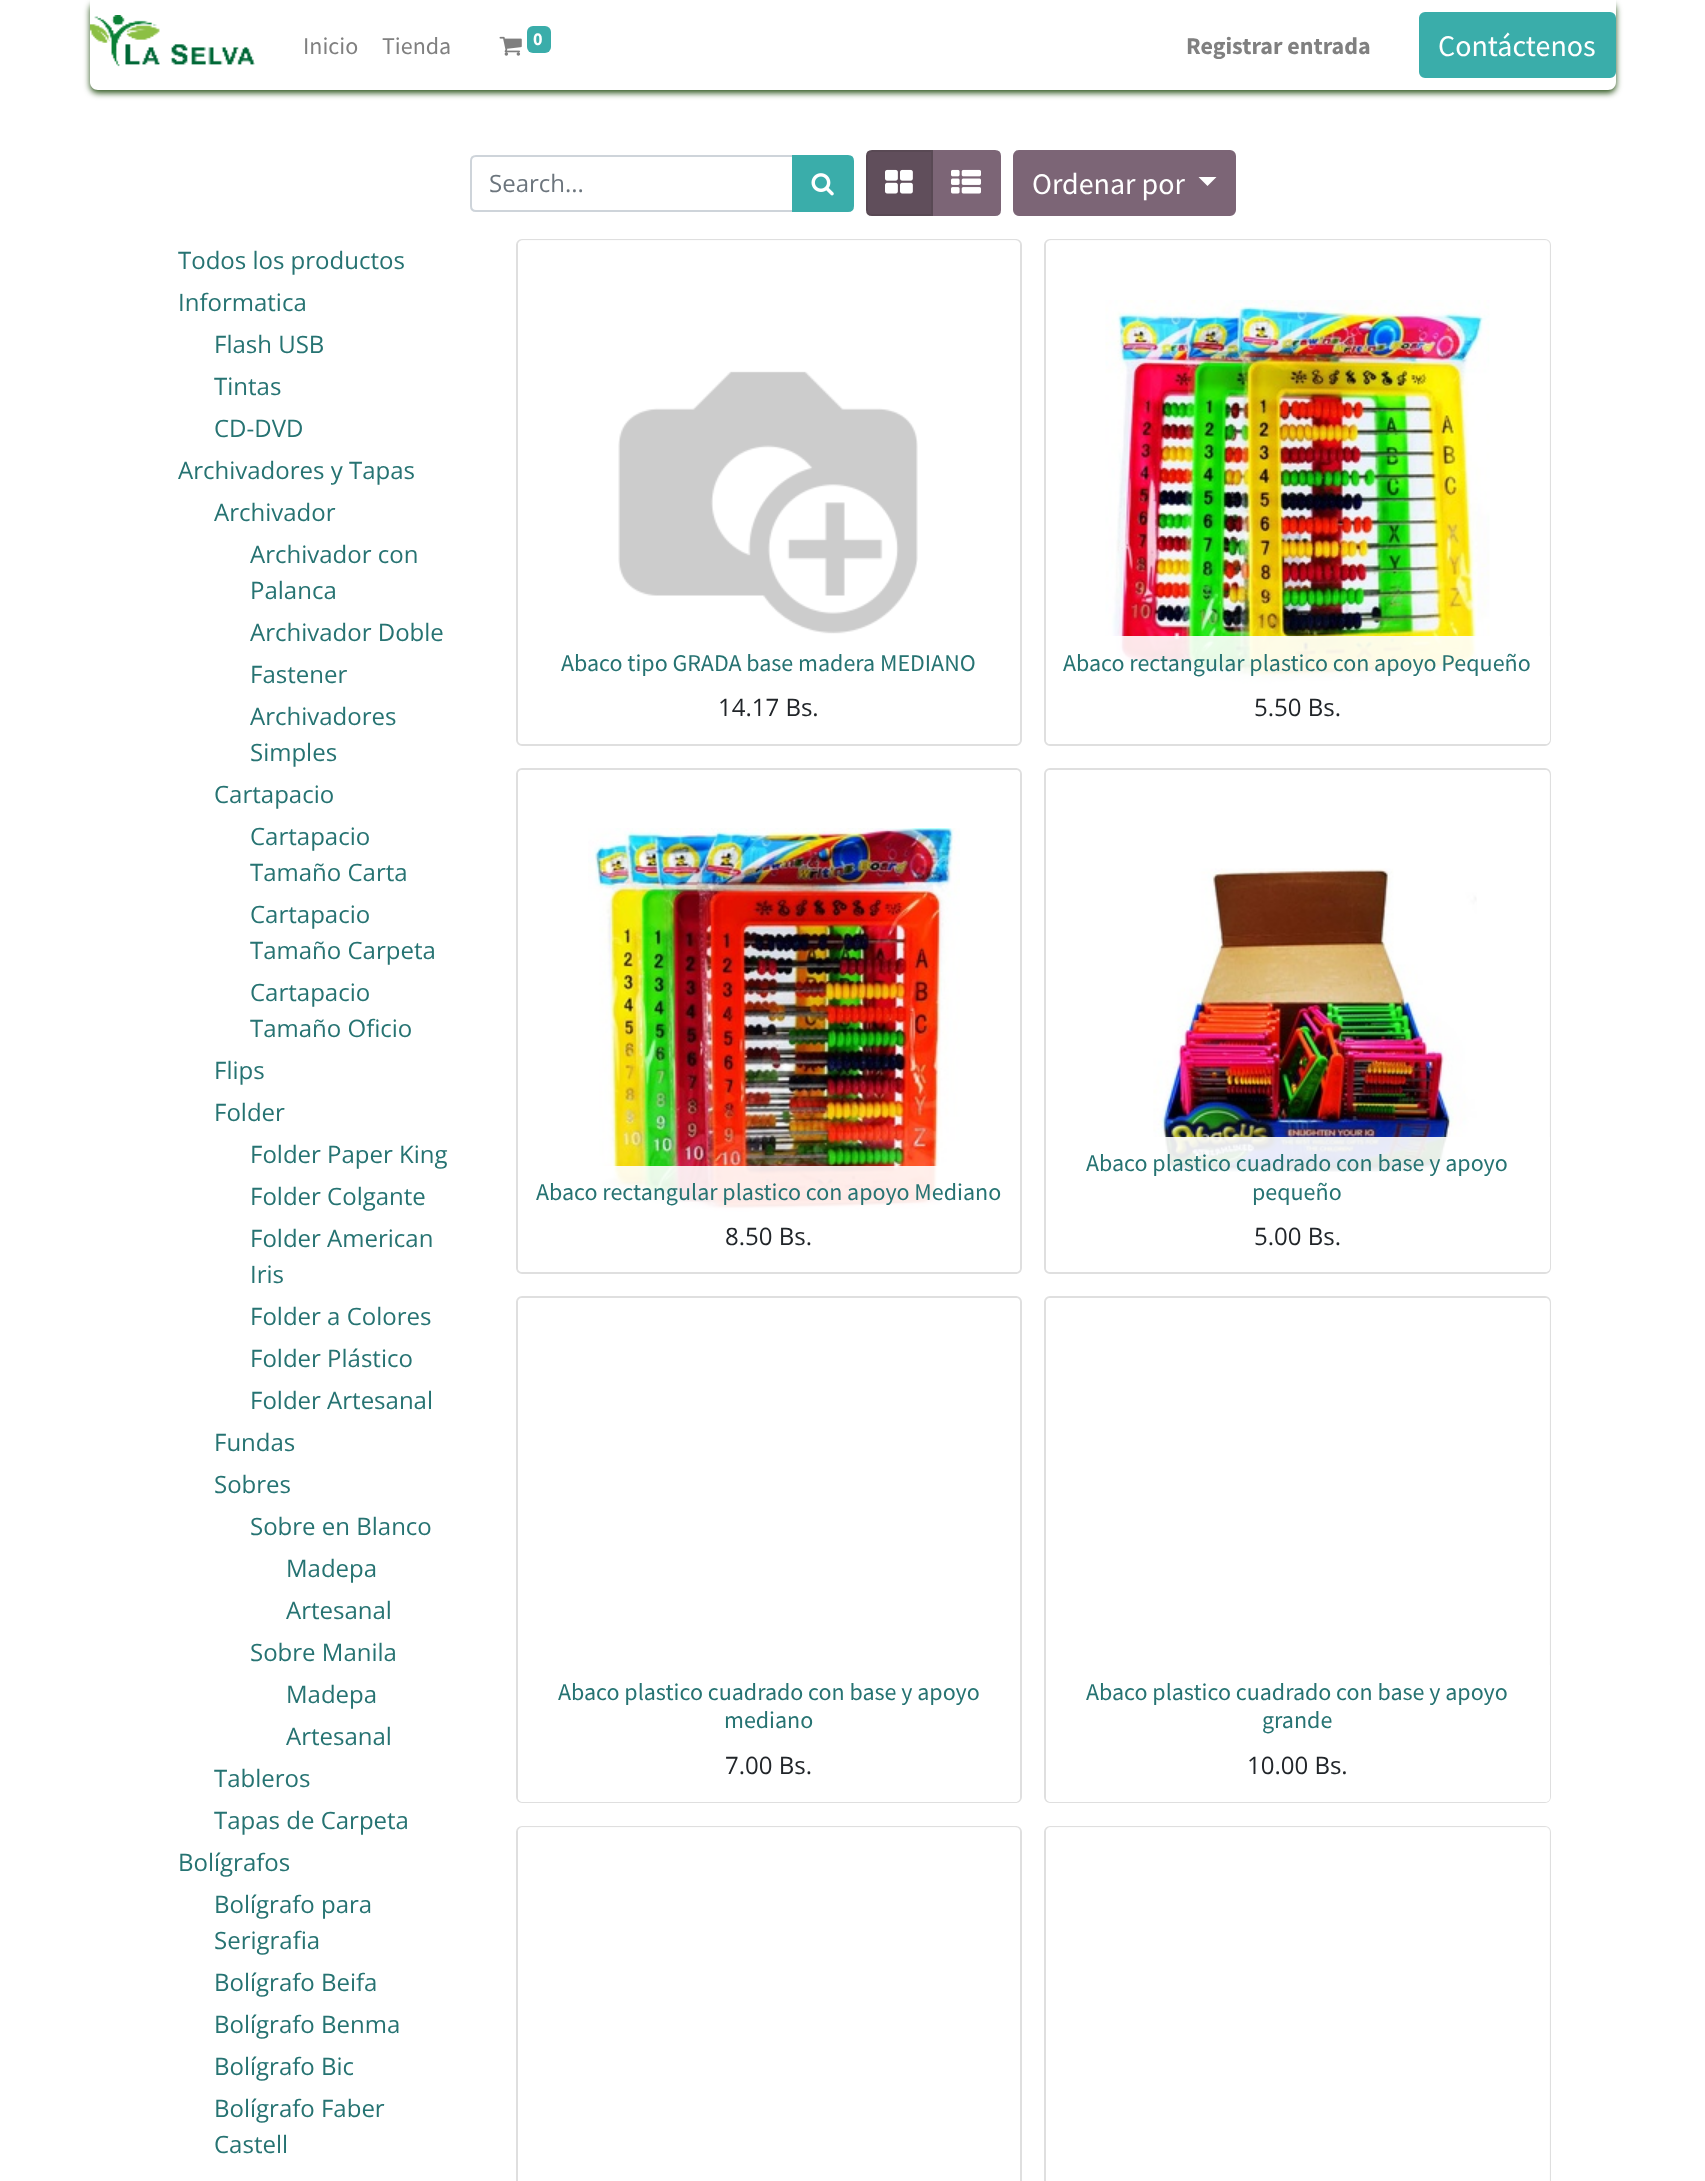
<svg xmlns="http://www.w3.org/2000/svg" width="1705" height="2181">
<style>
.a{font:24px Source Sans Pro;fill:#808080}
.b{font:bold 18px Source Sans Pro;fill:#fff}
.c{font:bold 24px Source Sans Pro;fill:#808080}
.d{font:30px Source Sans Pro;fill:#fff}
.e{font:24px Open Sans;fill:#6c757d}
.f{font:24px Open Sans;fill:#267372}
.g{font:24px Source Sans Pro;fill:#267372}
.h{font:24px Open Sans;fill:#212529}
</style>
<rect width="100%" height="100%" fill="#fff"/>
<rect fill="#295218" filter="blur(3px)" x="90" y="3" width="1526" height="90" rx="8"/>
<path fill="#fff" d="M90 0h1526v82c0 4.5-3.5 8-8 8h-1510c-4.5 0-8-3.5-8-8z"/>
<image href="1.png" x="90" y="15" width="165" height="52"/>
<image href="2.png" x="499" y="36" width="23" height="20"/>
<rect fill="#3aadaa" x="527" y="26" width="24" height="27" rx="6"/>
<rect fill="#3aadaa" stroke="#3aadaa" stroke-width="2" x="1420" y="13" width="195" height="64" rx="5"/>
<path fill="none" stroke="#ced4da" stroke-width="2" d="M476 156h317v55h-317c-3 0-5-2-5-5v-45c0-3 2-5 5-5z"/>
<path fill="#3aadaa" stroke="#3aadaa" stroke-width="2" d="M793 156h55c3 0 5 2 5 5v45c0 3-2 5-5 5h-55z"/>
<image href="3.png" x="811" y="173" width="23" height="23"/>
<path fill="#7c6576" stroke="#7c6576" stroke-width="2" d="M933 151h62c3 0 5 2 5 5v54c0 3-2 5-5 5h-62z"/>
<path fill="#604e5b" stroke="#594954" stroke-width="2" d="M872 151h60v64h-60c-3 0-5-2-5-5v-54c0-3 2-5 5-5z"/>
<image href="4.png" x="885" y="169" width="28" height="25"/>
<image href="5.png" x="951" y="169" width="30" height="25"/>
<rect fill="#7c6576" stroke="#7c6576" stroke-width="2" x="1014" y="151" width="221" height="64" rx="5"/>
<path fill="#fff" d="M1198.5 177h18l-9 9z"/>
<rect fill="none" stroke="#dfdfdf" stroke-width="2" x="517" y="240" width="504" height="505" rx="5"/>
<rect fill="#ffffffe6" x="518" y="240" width="502" height="504" rx="5"/>
<image href="6.png" x="618" y="371" width="300" height="263"/>
<rect fill="none" stroke="#dfdfdf" stroke-width="2" x="1045" y="240" width="505" height="505" rx="5"/>
<rect fill="#ffffffe6" x="1046" y="240" width="504" height="504" rx="5"/>
<image href="7.png" x="1105" y="300" width="385" height="384"/>
<path fill="#ffffffe6" d="M1046 636h504v103c0 3-2 5-5 5h-494c-3 0-5-2-5-5z"/>
<rect fill="none" stroke="#dfdfdf" stroke-width="2" x="517" y="769" width="504" height="504" rx="5"/>
<rect fill="#fff" x="518" y="770" width="502" height="502" rx="5"/>
<image href="8.png" x="588" y="828" width="372" height="384"/>
<path fill="#ffffffe6" d="M518 1166h502v101c0 3-2 5-5 5h-492c-3 0-5-2-5-5z"/>
<rect fill="none" stroke="#dfdfdf" stroke-width="2" x="1045" y="769" width="505" height="504" rx="5"/>
<rect fill="#ffffffe6" x="1046" y="770" width="504" height="502" rx="5"/>
<image href="9.png" x="1153" y="868" width="324" height="304"/>
<path fill="#ffffffe6" d="M1046 1137h504v130c0 3-2 5-5 5h-494c-3 0-5-2-5-5z"/>
<rect fill="none" stroke="#dfdfdf" stroke-width="2" x="517" y="1297" width="504" height="505" rx="5"/>
<rect fill="#ffffffe6" x="518" y="1298" width="502" height="504" rx="5"/>
<path fill="#ffffffe6" d="M518 1665h502v132c0 3-2 5-5 5h-492c-3 0-5-2-5-5z"/>
<rect fill="none" stroke="#dfdfdf" stroke-width="2" x="1045" y="1297" width="505" height="505" rx="5"/>
<rect fill="#ffffffe6" x="1046" y="1298" width="504" height="504" rx="5"/>
<path fill="#ffffffe6" d="M1046 1665h504v132c0 3-2 5-5 5h-494c-3 0-5-2-5-5z"/>
<rect fill="none" stroke="#dfdfdf" stroke-width="2" x="517" y="1827" width="504" height="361" rx="5"/>
<path fill="#ffffffe6" d="M523 1827h492c3 0 5 2 5 5v349h-502v-349c0-3 2-5 5-5z"/>
<rect fill="none" stroke="#dfdfdf" stroke-width="2" x="1045" y="1827" width="505" height="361" rx="5"/>
<path fill="#ffffffe6" d="M1051 1827h494c3 0 5 2 5 5v349h-504v-349c0-3 2-5 5-5z"/>
<text class="a" x="303" y="54">Inicio</text>
<text class="a" x="382" y="54">Tienda</text>
<text class="b" x="533" y="45">0</text>
<text class="c" x="1186" y="54">Registrar entrada</text>
<text class="d" x="1438" y="56">Contáctenos</text>
<text class="e" x="489" y="192">Search...</text>
<text class="d" x="1032" y="194">Ordenar por</text>
<text class="f" x="178" y="269">Todos los productos</text>
<text class="f" x="178" y="311">Informatica</text>
<text class="f" x="214" y="353">Flash USB</text>
<text class="f" x="214" y="395">Tintas</text>
<text class="f" x="214" y="437">CD-DVD</text>
<text class="f" x="178" y="479">Archivadores y Tapas</text>
<text class="f" x="214" y="521">Archivador</text>
<text class="f" x="250" y="563">Archivador con</text>
<text class="f" x="250" y="599">Palanca</text>
<text class="f" x="250" y="641">Archivador Doble</text>
<text class="f" x="250" y="683">Fastener</text>
<text class="f" x="250" y="725">Archivadores</text>
<text class="f" x="250" y="761">Simples</text>
<text class="f" x="214" y="803">Cartapacio</text>
<text class="f" x="250" y="845">Cartapacio</text>
<text class="f" x="250" y="881">Tamaño Carta</text>
<text class="f" x="250" y="923">Cartapacio</text>
<text class="f" x="250" y="959">Tamaño Carpeta</text>
<text class="f" x="250" y="1001">Cartapacio</text>
<text class="f" x="250" y="1037">Tamaño Oficio</text>
<text class="f" x="214" y="1079">Flips</text>
<text class="f" x="214" y="1121">Folder</text>
<text class="f" x="250" y="1163">Folder Paper King</text>
<text class="f" x="250" y="1205">Folder Colgante</text>
<text class="f" x="250" y="1247">Folder American</text>
<text class="f" x="250" y="1283">Iris</text>
<text class="f" x="250" y="1325">Folder a Colores</text>
<text class="f" x="250" y="1367">Folder Plástico</text>
<text class="f" x="250" y="1409">Folder Artesanal</text>
<text class="f" x="214" y="1451">Fundas</text>
<text class="f" x="214" y="1493">Sobres</text>
<text class="f" x="250" y="1535">Sobre en Blanco</text>
<text class="f" x="286" y="1577">Madepa</text>
<text class="f" x="286" y="1619">Artesanal</text>
<text class="f" x="250" y="1661">Sobre Manila</text>
<text class="f" x="286" y="1703">Madepa</text>
<text class="f" x="286" y="1745">Artesanal</text>
<text class="f" x="214" y="1787">Tableros</text>
<text class="f" x="214" y="1829">Tapas de Carpeta</text>
<text class="f" x="178" y="1871">Bolígrafos</text>
<text class="f" x="214" y="1913">Bolígrafo para</text>
<text class="f" x="214" y="1949">Serigrafia</text>
<text class="f" x="214" y="1991">Bolígrafo Beifa</text>
<text class="f" x="214" y="2033">Bolígrafo Benma</text>
<text class="f" x="214" y="2075">Bolígrafo Bic</text>
<text class="f" x="214" y="2117">Bolígrafo Faber</text>
<text class="f" x="214" y="2153">Castell</text>
<text class="g" x="561" y="671">Abaco tipo GRADA base madera MEDIANO</text>
<text class="h" x="718" y="716">14.17 Bs.</text>
<text class="g" x="1063" y="671">Abaco rectangular plastico con apoyo Pequeño</text>
<text class="h" x="1254" y="716">5.50 Bs.</text>
<text class="g" x="536" y="1200">Abaco rectangular plastico con apoyo Mediano</text>
<text class="h" x="725" y="1245">8.50 Bs.</text>
<text class="g" x="1086" y="1171">Abaco plastico cuadrado con base y apoyo</text>
<text class="g" x="1252" y="1200">pequeño</text>
<text class="h" x="1254" y="1245">5.00 Bs.</text>
<text class="g" x="558" y="1700">Abaco plastico cuadrado con base y apoyo</text>
<text class="g" x="724" y="1728">mediano</text>
<text class="h" x="725" y="1774">7.00 Bs.</text>
<text class="g" x="1086" y="1700">Abaco plastico cuadrado con base y apoyo</text>
<text class="g" x="1262" y="1728">grande</text>
<text class="h" x="1247" y="1774">10.00 Bs.</text>
</svg>
